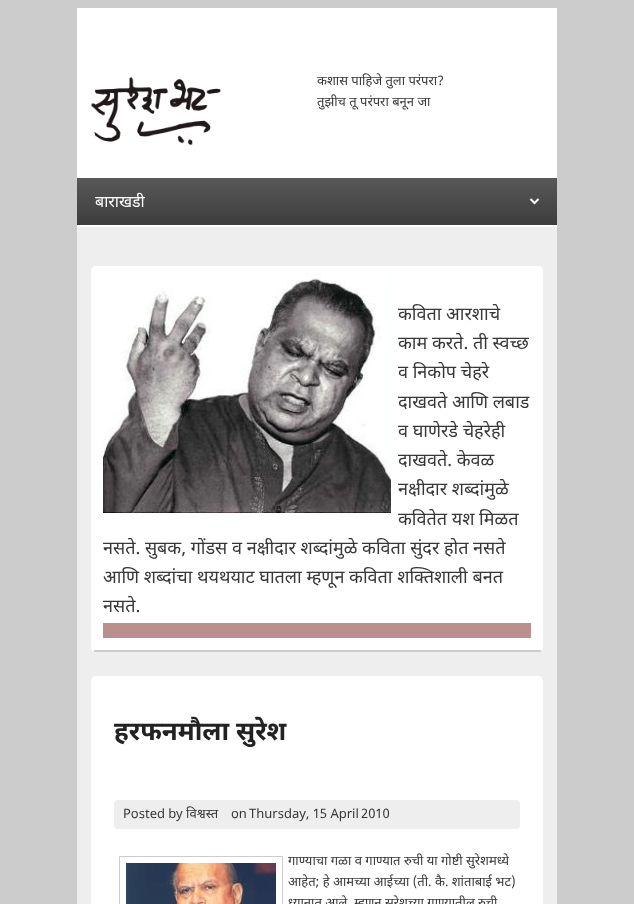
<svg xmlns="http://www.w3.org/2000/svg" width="634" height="904">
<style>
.a{font:13px Noto Sans Devanagari;fill:#373737}
.b{font:16px Noto Sans;fill:#fff}
.c{font:18px Noto Sans Devanagari;fill:#373737}
.d{font:bold 26px Noto Sans Devanagari;fill:#222}
</style>
<defs>
<linearGradient id="g1" gradientUnits="userSpaceOnUse" x1="317" y1="178" x2="317" y2="225"><stop offset="0" stop-color="#585858"/><stop offset="1" stop-color="#3d3d3d"/></linearGradient>
</defs>
<rect width="100%" height="100%" fill="#ccc"/>
<path fill="#eee" d="M77 227h480v677H77z"/>
<path fill="#fff" d="M77 8h480v219H77z"/>
<image href="1.png" x="91" y="77" width="130" height="68"/>
<path fill="url(#g1)" d="M77 178h480v47H77z"/>
<path fill="none" stroke="#fff" stroke-width="2" d="M530.5 199l4 4l4-4"/>
<rect fill="#fff" x="91" y="266" width="452" height="386" rx="5"/>
<path fill="#ccc" d="M94 650h447v2H94z"/>
<path fill="#bc8f8f" d="M103 623h428v15H103z"/>
<image href="2.png" x="103" y="273" width="288" height="240"/>
<rect fill="#fff" x="91" y="676" width="452" height="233" rx="5"/>
<rect fill="#eee" x="114" y="800" width="406" height="29" rx="4"/>
<path fill="none" stroke="#ccc" d="M119.5 856.5h163v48H119.5z"/>
<image href="3.png" x="126" y="863" width="150" height="41"/>
<text class="a" x="317" y="85">कशास पाहिजे तुला परंपरा?</text>
<text class="a" x="317" y="106">तुझीच तू परंपरा बनून जा</text>
<text class="b" x="95" y="207">बाराखडी</text>
<text class="c" x="398" y="320">कविता आरशाचे</text>
<text class="c" x="398" y="349">काम करते. ती स्वच्छ</text>
<text class="c" x="398" y="378">व निकोप चेहरे</text>
<text class="c" x="398" y="408">दाखवते आणि लबाड</text>
<text class="c" x="398" y="437">व घाणेरडे चेहरेही</text>
<text class="c" x="398" y="466">दाखवते. केवळ</text>
<text class="c" x="398" y="495">नक्षीदार शब्दांमुळे</text>
<text class="c" x="398" y="525">कवितेत यश मिळत</text>
<text class="c" x="103" y="554">नसते. सुबक, गोंडस व नक्षीदार शब्दांमुळे कविता सुंदर होत नसते</text>
<text class="c" x="103" y="583">आणि शब्दांचा थयथयाट घातला म्हणून कविता शक्तिशाली बनत</text>
<text class="c" x="103" y="612">नसते.</text>
<text class="d" x="114" y="740">हरफनमौला सुरेश</text>
<text class="a" x="123" y="818">Posted by विश्वस्त</text>
<text class="a" x="231" y="818">on</text>
<text class="a" x="249" y="818">Thursday, 15 April</text>
<text class="a" x="361" y="818">2010</text>
<text class="a" x="288" y="865">गाण्याचा गळा व गाण्यात रुची या गोष्टी सुरेशमध्ये</text>
<text class="a" x="288" y="886">आहेत; हे आमच्या आईच्या (ती. कै. शांताबाई भट)</text>
<text class="a" x="288" y="907">ध्यानात आले. म्हणून सुरेशच्या गाण्यातील रुची</text>
</svg>
